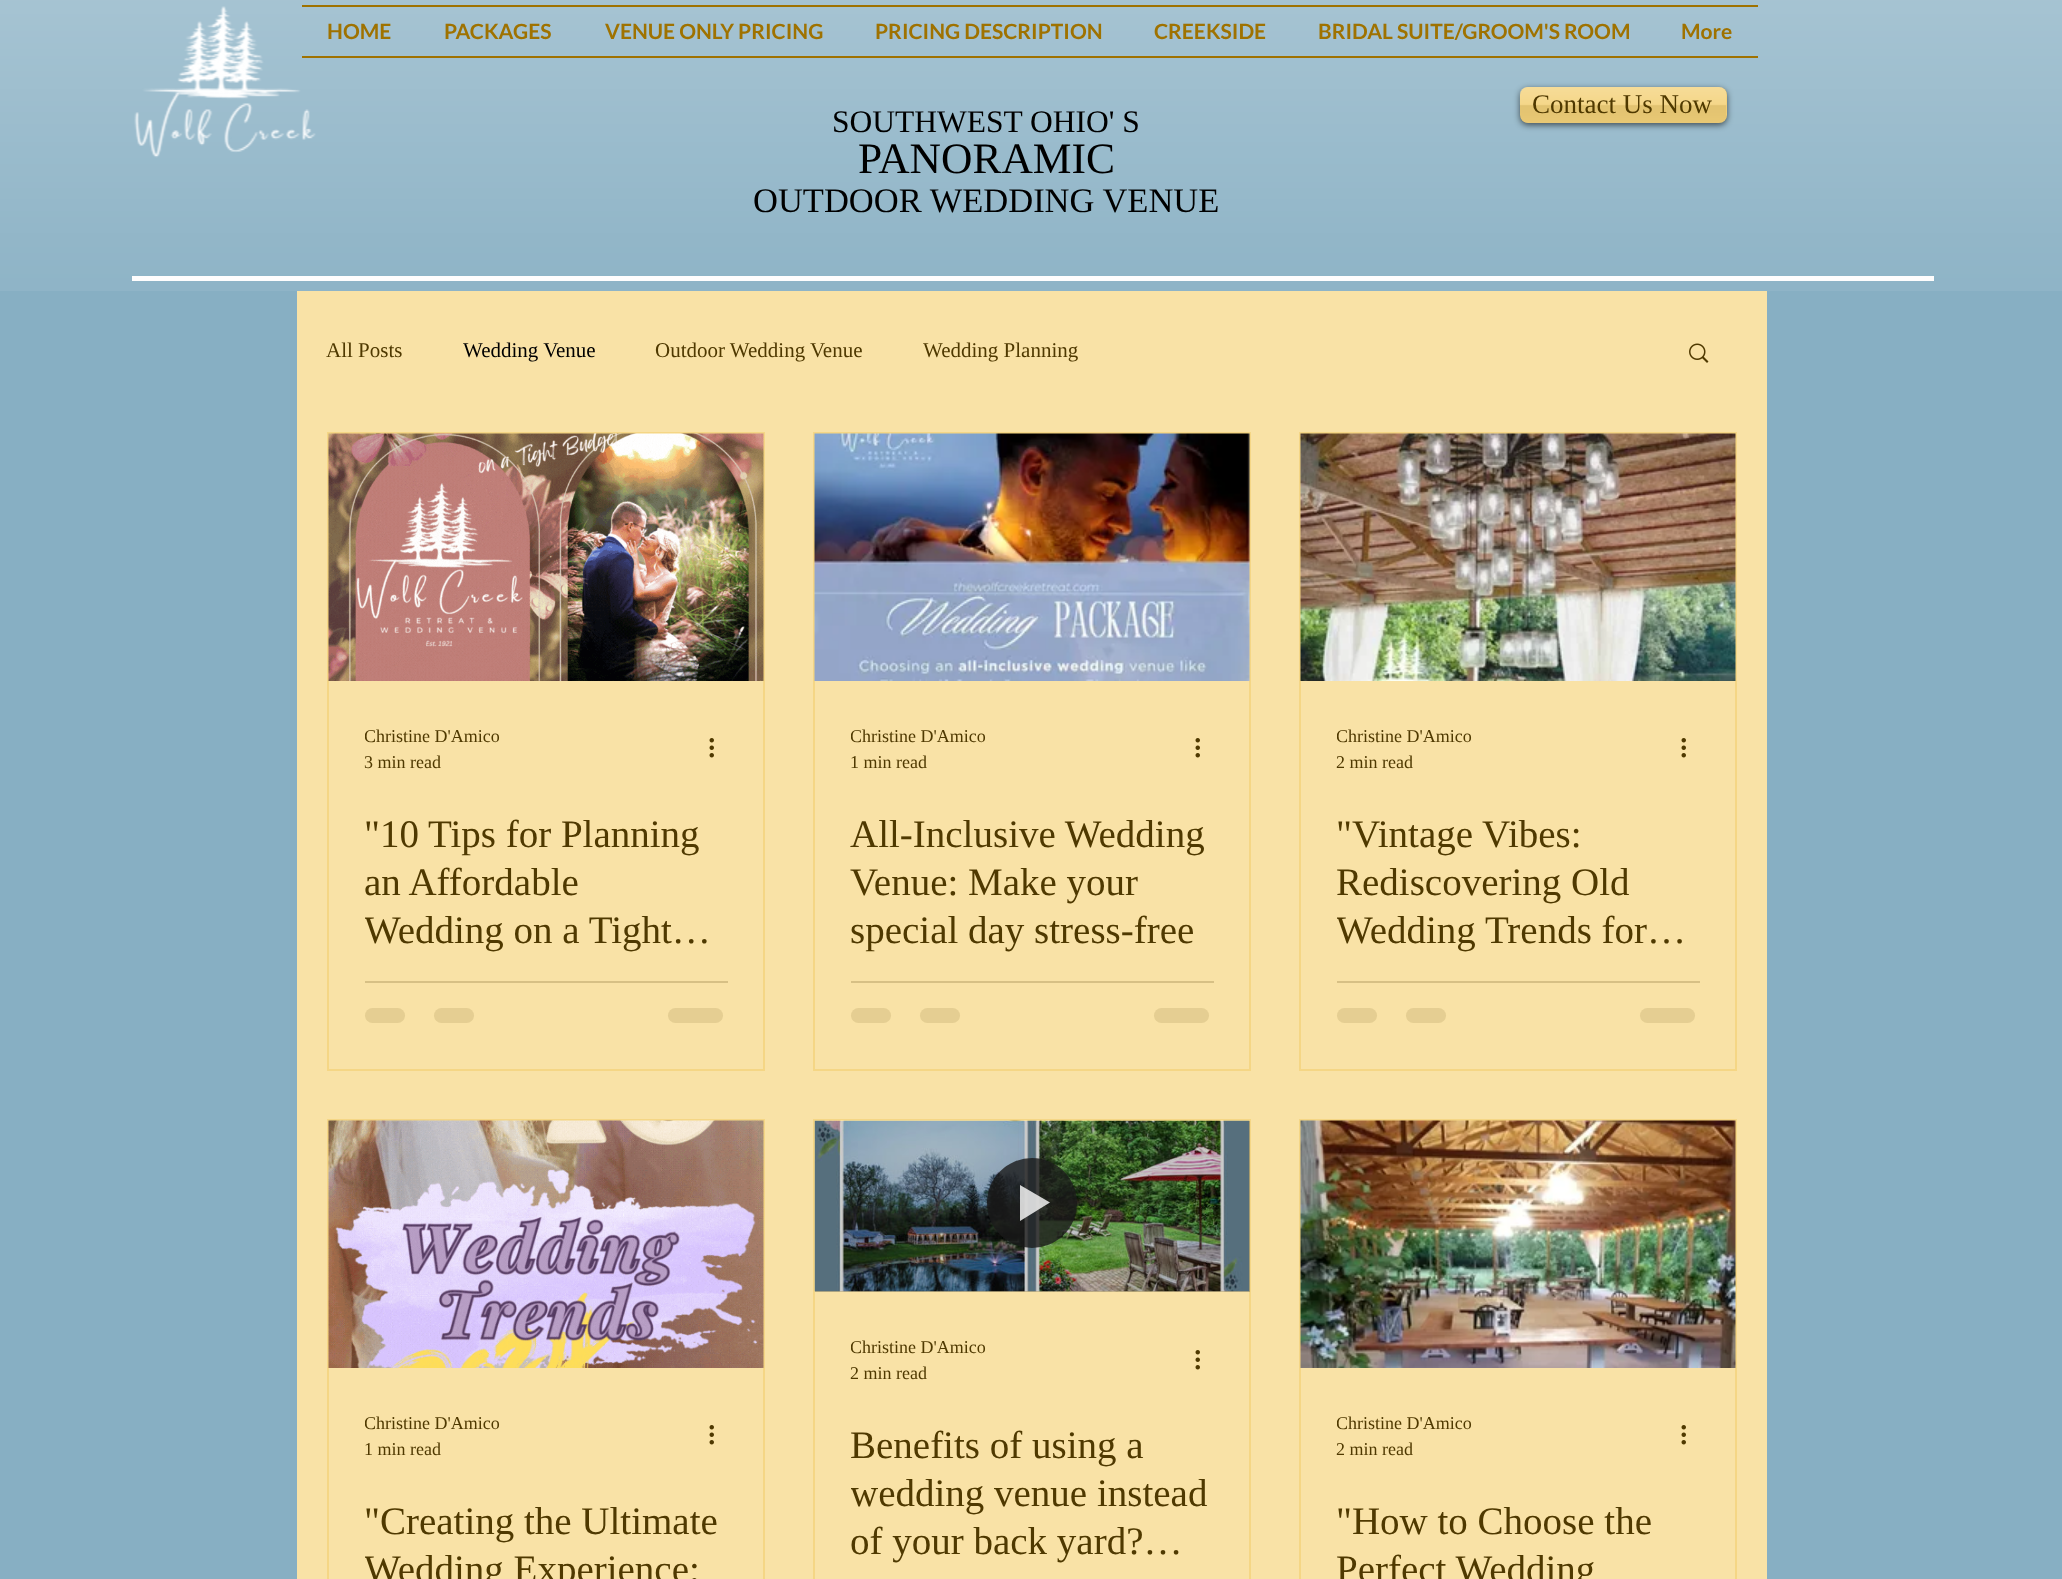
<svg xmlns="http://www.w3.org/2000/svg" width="2062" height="1579">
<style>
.a{font:bold 21px Lato;fill:#9f7200}
.b{font:27px Liberation Serif;fill:#4f3900}
.c{font:31.5px Liberation Serif;fill:#000}
.d{font:43.5px Liberation Serif;fill:#000}
.e{font:34.5px Liberation Serif;fill:#000}
.f{font:21px Liberation Serif;fill:#4f3900}
.g{font:21px Liberation Serif;fill:#000}
.h{font:18px Liberation Serif;fill:#4f3900}
.i{font:39px Liberation Serif;fill:#4f3900}
</style>
<defs>
<clipPath id="clip1"><path d="M365 726h135v23H365z"/></clipPath>
<clipPath id="clip2"><path d="M365 812h363v144H365z"/></clipPath>
<clipPath id="clip3"><path d="M851 726h135v23H851z"/></clipPath>
<clipPath id="clip4"><path d="M1337 726h135v23H1337z"/></clipPath>
<clipPath id="clip5"><path d="M1337 812h363v144H1337z"/></clipPath>
<clipPath id="clip6"><path d="M365 1413h135v23H365z"/></clipPath>
<clipPath id="clip7"><path d="M365 1499h363v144H365z"/></clipPath>
<clipPath id="clip8"><path d="M851 1337h135v22H851z"/></clipPath>
<clipPath id="clip9"><path d="M851 1422h363v144H851z"/></clipPath>
<clipPath id="clip10"><path d="M1337 1413h135v23H1337z"/></clipPath>
</defs>
<rect width="100%" height="100%" fill="#87afc3"/>
<image href="1.png" x="0" y="0" width="2062" height="291"/>
<path fill="#9f7200" d="M302 5h1456v2H302z"/>
<path fill="#9f7200" d="M302 56h1456v2H302z"/>
<image href="2.png" x="134" y="6" width="182" height="152"/>
<rect fill="#00000099" filter="blur(3px)" x="1520" y="89" width="207" height="36" rx="8"/>
<rect fill="#f4d27a" x="1520" y="87" width="207" height="36" rx="8"/>
<image href="3.png" x="1519" y="87" width="208" height="36"/>
<path fill="#fefdfd" d="M132 276h1802v5H132z"/>
<path fill="#f9e2a6" d="M297 291h1470v1288H297z"/>
<image href="4.png" x="1689" y="343" width="20" height="20"/>
<path fill="none" stroke="#f5d685" stroke-width="2" d="M328 433h436v637H328z"/>
<image href="5.png" x="328" y="433" width="436" height="248"/>
<image href="6.png" x="709" y="738" width="5" height="20"/>
<path fill="#d7c085" d="M365 981h363v2H365z"/>
<rect fill="#e5ce92" x="365" y="1008" width="40" height="15" rx="7.5"/>
<rect fill="#e5ce92" x="434" y="1008" width="40" height="15" rx="7.5"/>
<rect fill="#e5ce92" x="668" y="1008" width="55" height="15" rx="7.5"/>
<path fill="none" stroke="#f5d685" stroke-width="2" d="M814 433h436v637H814z"/>
<image href="7.png" x="814" y="433" width="436" height="248"/>
<image href="6.png" x="1195" y="738" width="5" height="20"/>
<path fill="#d7c085" d="M851 981h363v2H851z"/>
<rect fill="#e5ce92" x="851" y="1008" width="40" height="15" rx="7.5"/>
<rect fill="#e5ce92" x="920" y="1008" width="40" height="15" rx="7.5"/>
<rect fill="#e5ce92" x="1154" y="1008" width="55" height="15" rx="7.5"/>
<path fill="none" stroke="#f5d685" stroke-width="2" d="M1300 433h436v637H1300z"/>
<image href="8.png" x="1300" y="433" width="436" height="248"/>
<image href="6.png" x="1681" y="738" width="5" height="20"/>
<path fill="#d7c085" d="M1337 981h363v2H1337z"/>
<rect fill="#e5ce92" x="1337" y="1008" width="40" height="15" rx="7.5"/>
<rect fill="#e5ce92" x="1406" y="1008" width="40" height="15" rx="7.5"/>
<rect fill="#e5ce92" x="1640" y="1008" width="55" height="15" rx="7.5"/>
<path fill="none" stroke="#f5d685" stroke-width="2" d="M328 1120h436v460H328z"/>
<image href="9.png" x="328" y="1120" width="436" height="248"/>
<image href="6.png" x="709" y="1425" width="5" height="20"/>
<path fill="none" stroke="#f5d685" stroke-width="2" d="M814 1120h436v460H814z"/>
<image href="10.png" x="814" y="1120" width="436" height="172"/>
<path fill="#00000033" d="M815 1121h435v171H815z"/>
<circle fill="#1a1a1acc" cx="1032" cy="1203" r="45"/>
<path fill="#ffffffcc" d="M1020 1185v36l30-18.5z"/>
<image href="6.png" x="1195" y="1350" width="5" height="20"/>
<path fill="none" stroke="#f5d685" stroke-width="2" d="M1300 1120h436v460H1300z"/>
<image href="11.png" x="1300" y="1120" width="436" height="248"/>
<image href="6.png" x="1681" y="1425" width="5" height="20"/>
<text class="a" x="327" y="39">HOME</text>
<text class="a" x="444" y="39">PACKAGES</text>
<text class="a" x="605" y="39">VENUE ONLY PRICING</text>
<text class="a" x="875" y="39">PRICING DESCRIPTION</text>
<text class="a" x="1154" y="39">CREEKSIDE</text>
<text class="a" x="1318" y="39">BRIDAL SUITE/GROOM'S ROOM</text>
<text class="a" x="1681" y="39">More</text>
<text class="b" x="1532" y="113">Contact Us Now</text>
<text class="c" x="832" y="132">SOUTHWEST OHIO' S</text>
<text class="d" x="858" y="173">PANORAMIC</text>
<text class="e" x="753" y="212">OUTDOOR WEDDING VENUE</text>
<text class="f" x="326" y="357">All Posts</text>
<text class="g" x="463" y="357">Wedding Venue</text>
<text class="f" x="655" y="357">Outdoor Wedding Venue</text>
<text class="f" x="923" y="357">Wedding Planning</text>
<g clip-path="url(#clip1)">
<text class="h" x="364" y="742">Christine D'Amico</text>
</g>
<text class="h" x="364" y="768">3 min read</text>
<text class="i" x="364" y="847">"10 Tips for Planning</text>
<text class="i" x="364" y="895">an Affordable</text>
<g clip-path="url(#clip2)">
<text class="i" x="364" y="943">Wedding on a Tight…</text>
</g>
<g clip-path="url(#clip3)">
<text class="h" x="850" y="742">Christine D'Amico</text>
</g>
<text class="h" x="850" y="768">1 min read</text>
<text class="i" x="850" y="847">All-Inclusive Wedding</text>
<text class="i" x="850" y="895">Venue: Make your</text>
<text class="i" x="850" y="943">special day stress-free</text>
<g clip-path="url(#clip4)">
<text class="h" x="1336" y="742">Christine D'Amico</text>
</g>
<text class="h" x="1336" y="768">2 min read</text>
<text class="i" x="1336" y="847">"Vintage Vibes:</text>
<text class="i" x="1336" y="895">Rediscovering Old</text>
<g clip-path="url(#clip5)">
<text class="i" x="1336" y="943">Wedding Trends for…</text>
</g>
<g clip-path="url(#clip6)">
<text class="h" x="364" y="1429">Christine D'Amico</text>
</g>
<text class="h" x="364" y="1455">1 min read</text>
<text class="i" x="364" y="1534">"Creating the Ultimate</text>
<g clip-path="url(#clip7)">
<text class="i" x="364" y="1582">Wedding Experience:</text>
</g>
<g clip-path="url(#clip8)">
<text class="h" x="850" y="1353">Christine D'Amico</text>
</g>
<text class="h" x="850" y="1379">2 min read</text>
<text class="i" x="850" y="1458">Benefits of using a</text>
<g clip-path="url(#clip9)">
<text class="i" x="850" y="1506">wedding venue instead</text>
</g>
<text class="i" x="850" y="1554">of your back yard?…</text>
<g clip-path="url(#clip10)">
<text class="h" x="1336" y="1429">Christine D'Amico</text>
</g>
<text class="h" x="1336" y="1455">2 min read</text>
<text class="i" x="1336" y="1534">"How to Choose the</text>
<text class="i" x="1336" y="1582">Perfect Wedding</text>
</svg>
